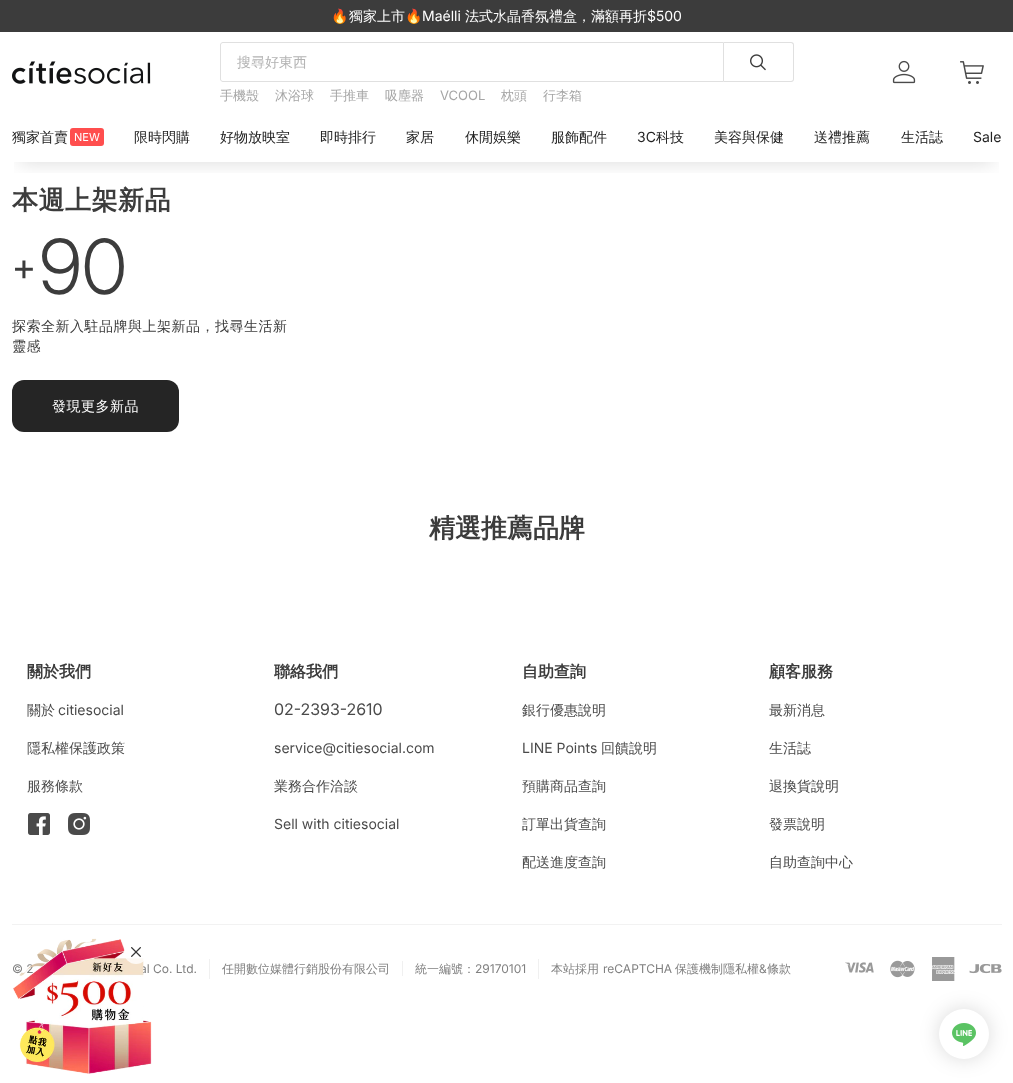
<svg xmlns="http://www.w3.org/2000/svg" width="1013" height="1083">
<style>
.a{font:14px Noto Color Emoji;fill:#fff}
.b{font:500 14px WenQuanYi Zen Hei;fill:#fff}
.c{font:14px Inter;fill:#fff}
.d{font:500 14px WenQuanYi Zen Hei;fill:#b3b3b3}
.e{font:500 13px WenQuanYi Zen Hei;fill:#a5a5a5}
.f{font:13px Inter;fill:#a5a5a5}
.g{font:500 14px WenQuanYi Zen Hei;fill:#222}
.h{font:11px Inter;fill:#fff}
.i{font:14px Inter;fill:#222}
.j{font:bold 26px WenQuanYi Zen Hei;letter-spacing:0.5px;fill:#3c3c3c}
.k{font:38px 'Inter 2';fill:#3c3c3c}
.l{font:300 76px Inter;fill:#3c3c3c}
.m{font:500 14px WenQuanYi Zen Hei;letter-spacing:0.5px;fill:#3c3c3c}
.n{font:500 14px WenQuanYi Zen Hei;letter-spacing:0.5px;fill:#fff}
.o{font:bold 26px WenQuanYi Zen Hei;fill:#3c3c3c}
.p{font:bold 16px WenQuanYi Zen Hei;fill:#3c3c3c}
.q{font:500 14px WenQuanYi Zen Hei;fill:#4a4a4a}
.r{font:14px Inter;fill:#4a4a4a}
.s{font:16px 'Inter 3';fill:#4a4a4a}
.t{font:12px Inter;fill:#808080}
.u{font:500 12px WenQuanYi Zen Hei;fill:#808080}
</style>
<defs>
<clipPath id="clip1"><path d="M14 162h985v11H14z"/></clipPath>
</defs>
<rect width="100%" height="100%" fill="#fff"/>
<path fill="#3c3c3c" d="M0 0h1013v32H0z"/>
<g clip-path="url(#clip1)">
<path fill="#00000026" filter="blur(10px)" d="M20 72h973v90H20z"/>
</g>
<image href="1.png" x="12" y="61" width="139" height="23"/>
<path fill="none" stroke="#e0e0e0" d="M223 42.5h500.5v39h-500.5c-1.5 0-2.5-1-2.5-2.5v-34c0-1.5 1-2.5 2.5-2.5z"/>
<path fill="#e0e0e0" fill-rule="evenodd" d="M724 42h67c2 0 3 1 3 3v34c0 2-1 3-3 3h-67zm0 1h67c1 0 2 1 2 2v34c0 1-1 2-2 2h-67z"/>
<image href="2.png" x="750" y="54" width="16" height="17"/>
<image href="3.png" x="892" y="60" width="24" height="24"/>
<image href="4.png" x="960" y="61" width="24" height="23"/>
<rect fill="#ff4e4e" x="70" y="128" width="34" height="18" rx="3"/>
<rect fill="#252525" x="12" y="380" width="167" height="52" rx="12"/>
<image href="5.png" x="28" y="813" width="22" height="22"/>
<image href="6.png" x="68" y="813" width="22" height="22"/>
<path fill="#f2f2f2" d="M12 924h990v1H12z"/>
<path fill="#f0f0f0" d="M209 959h1v20H209z"/>
<path fill="#f0f0f0" d="M402 961h1v15H402z"/>
<path fill="#f0f0f0" d="M538 959h1v20H538z"/>
<image href="7.png" x="845" y="962" width="29" height="11"/>
<image href="8.png" x="890" y="960" width="25" height="18"/>
<image href="9.png" x="932" y="957" width="23" height="24"/>
<image href="10.png" x="969" y="964" width="33" height="10"/>
<rect fill="#00000026" filter="blur(10px)" x="939" y="1009" width="50" height="50" rx="25"/>
<circle fill="#fff" cx="964" cy="1034" r="25"/>
<image href="13.png" x="952" y="1023" width="24" height="23"/>
<text class="a" x="331" y="21">🔥</text>
<text class="b" x="349" y="21">獨家上市</text>
<text class="a" x="405" y="21">🔥</text>
<text class="c" x="422" y="21">Maélli</text>
<text class="b" x="465" y="21">法式水晶香氛禮盒，滿額再折</text>
<text class="c" x="647" y="21">$500</text>
<text class="d" x="237" y="67">搜尋好東西</text>
<text class="e" x="220" y="100">手機殼</text>
<text class="e" x="275" y="100">沐浴球</text>
<text class="e" x="330" y="100">手推車</text>
<text class="e" x="385" y="100">吸塵器</text>
<text class="f" x="440" y="100">VCOOL</text>
<text class="e" x="501" y="100">枕頭</text>
<text class="e" x="543" y="100">行李箱</text>
<text class="g" x="12" y="142">獨家首賣</text>
<text class="h" x="74" y="141">NEW</text>
<text class="g" x="134" y="142">限時閃購</text>
<text class="g" x="220" y="142">好物放映室</text>
<text class="g" x="320" y="142">即時排行</text>
<text class="g" x="406" y="142">家居</text>
<text class="g" x="465" y="142">休閒娛樂</text>
<text class="g" x="551" y="142">服飾配件</text>
<text class="i" x="637" y="142">3C</text>
<text class="g" x="656" y="142">科技</text>
<text class="g" x="714" y="142">美容與保健</text>
<text class="g" x="814" y="142">送禮推薦</text>
<text class="g" x="901" y="142">生活誌</text>
<text class="i" x="973" y="142">Sale</text>
<text class="j" x="12" y="209">本週上架新品</text>
<text class="k" x="12" y="280">+</text>
<text class="l" x="39" y="294">90</text>
<text class="m" x="12" y="331">探索全新入駐品牌與上架新品，找尋生活新</text>
<text class="m" x="12" y="351">靈感</text>
<text class="n" x="52" y="411">發現更多新品</text>
<text class="o" x="429" y="537">精選推薦品牌</text>
<text class="p" x="27" y="677">關於我們</text>
<text class="q" x="27" y="715">關於</text>
<text class="r" x="58" y="715">citiesocial</text>
<text class="q" x="27" y="753">隱私權保護政策</text>
<text class="q" x="27" y="791">服務條款</text>
<text class="p" x="274" y="677">聯絡我們</text>
<text class="s" x="274" y="715">02-2393-2610</text>
<text class="r" x="274" y="753">service@citiesocial.com</text>
<text class="q" x="274" y="791">業務合作洽談</text>
<text class="r" x="274" y="829">Sell with citiesocial</text>
<text class="p" x="522" y="677">自助查詢</text>
<text class="q" x="522" y="715">銀行優惠說明</text>
<text class="r" x="522" y="753">LINE Points</text>
<text class="q" x="601" y="753">回饋說明</text>
<text class="q" x="522" y="791">預購商品查詢</text>
<text class="q" x="522" y="829">訂單出貨查詢</text>
<text class="q" x="522" y="867">配送進度查詢</text>
<text class="p" x="769" y="677">顧客服務</text>
<text class="q" x="769" y="715">最新消息</text>
<text class="q" x="769" y="753">生活誌</text>
<text class="q" x="769" y="791">退換貨說明</text>
<text class="q" x="769" y="829">發票說明</text>
<text class="q" x="769" y="867">自助查詢中心</text>
<text class="t" x="12" y="973">© 2</text>
<text class="t" x="140" y="973">al Co. Ltd.</text>
<text class="u" x="222" y="973">任開數位媒體行銷股份有限公司</text>
<text class="u" x="415" y="973">統一編號：</text>
<text class="t" x="475" y="973">29170101</text>
<text class="u" x="551" y="973">本站採用</text>
<text class="t" x="603" y="973">reCAPTCHA</text>
<text class="u" x="675" y="973">保護機制隱私權</text>
<text class="t" x="759" y="973">&amp;</text>
<text class="u" x="767" y="973">條款</text>
<image href="11.png" x="13" y="938" width="139" height="136"/>
<circle fill="#ffffffcc" cx="136" cy="952" r="12"/>
<image href="12.png" x="131" y="947" width="10" height="10"/>
</svg>
